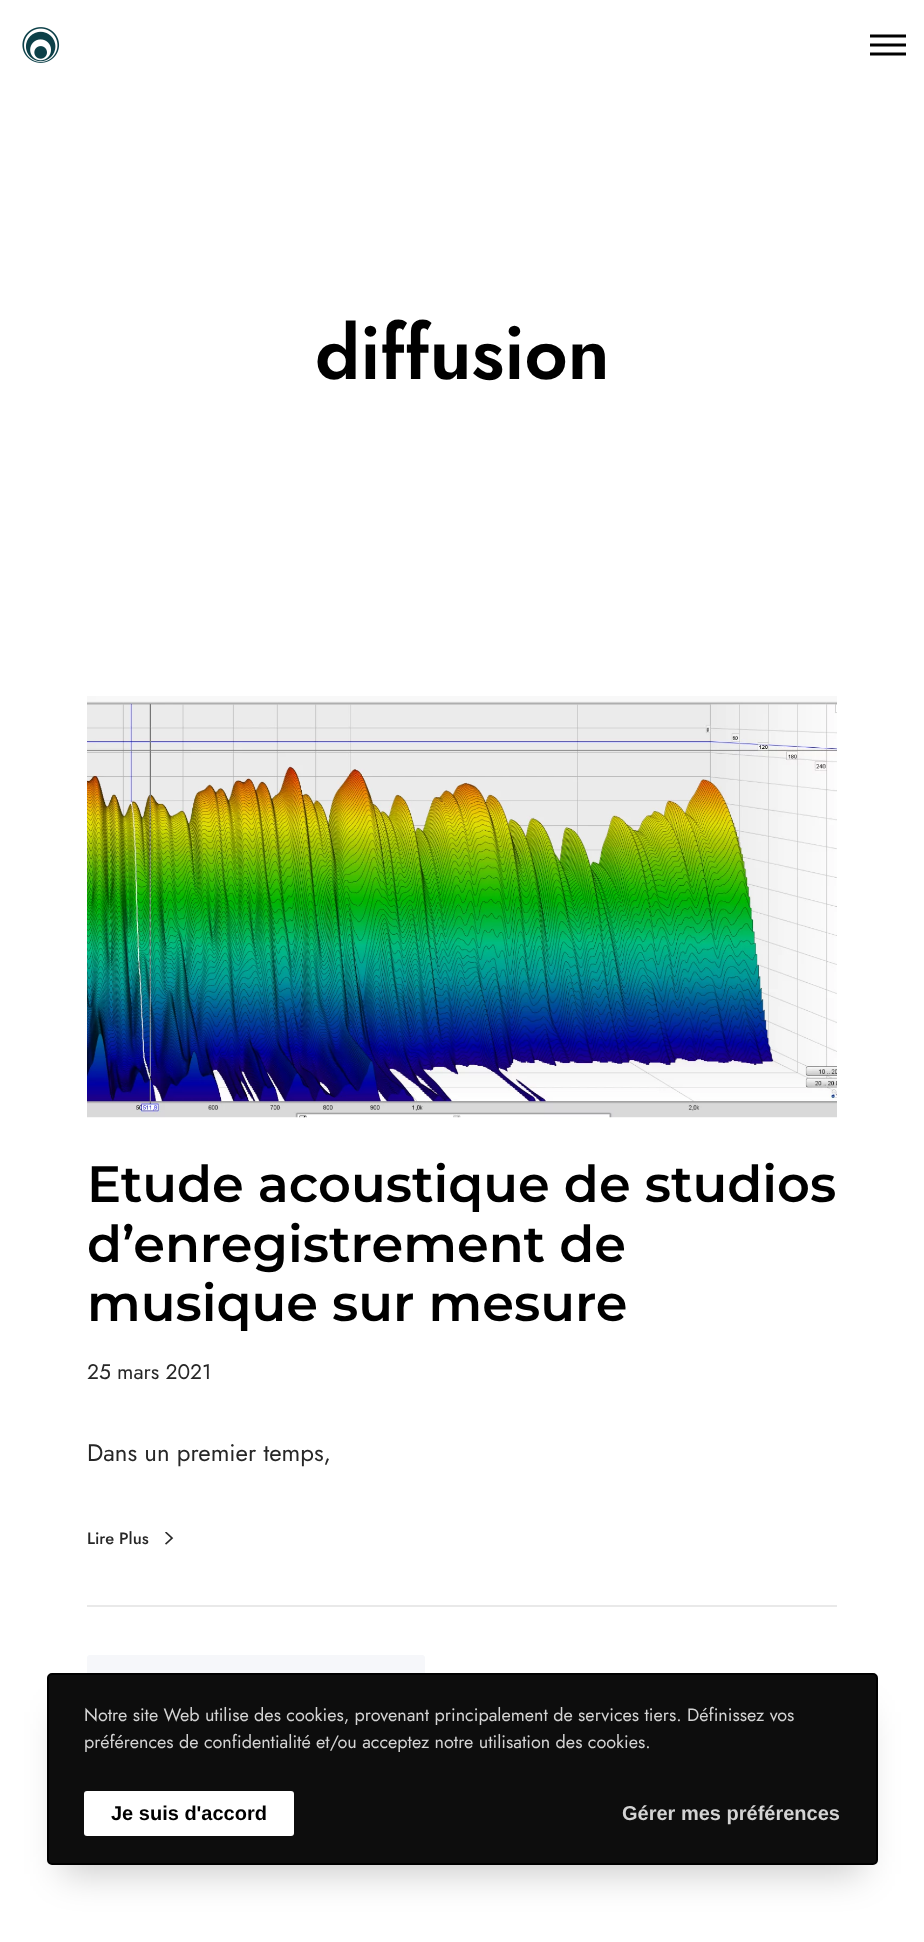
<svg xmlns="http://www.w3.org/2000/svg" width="924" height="1942">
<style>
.a{font:600 75px Jost;fill:#000}
.b{font:100 51px Montserrat;fill:#000}
.c{font:21px Jost;fill:#272727}
.d{font:24px Jost;fill:#272727}
.e{font:500 16.5px Jost;fill:#272727}
.f{font:18px Jost;fill:#d3d3d3}
.g{font:bold 20px Liberation Sans;fill:#000}
.h{font:bold 20px Liberation Sans;fill:#d3d3d3}
</style>
<rect width="100%" height="100%" fill="#fff"/>
<image href="1.png" x="22" y="27" width="38" height="36"/>
<path fill="#000" d="M906 52.5v3h-36v-3zm0-9v3h-36v-3zm0-9v3h-36v-3z"/>
<image href="2.png" x="87" y="696" width="750" height="422"/>
<image href="3.png" x="165" y="1532" width="9" height="13"/>
<path fill="#e9e9e9" d="M87 1605h750v2H87z"/>
<rect fill="#f6f7fa" x="87" y="1655" width="338" height="42" rx="3"/>
<path fill="#01010133" filter="blur(18px)" d="M62 1712h801v162H62z"/>
<rect fill="#0d0d0d" stroke="#000" stroke-width="2" x="48" y="1674" width="829" height="190" rx="4"/>
<rect fill="#fff" x="84" y="1791" width="210" height="45" rx="3"/>
<text class="a" x="315" y="379">diffusion</text>
<text class="b" x="87" y="1202">Etude acoustique de studios</text>
<text class="b" x="87" y="1262">d’enregistrement de</text>
<text class="b" x="87" y="1321">musique sur mesure</text>
<text class="c" x="87" y="1379">25 mars 2021</text>
<text class="d" x="87" y="1461">Dans un premier temps,</text>
<text class="e" x="87" y="1544">Lire Plus</text>
<text class="f" x="84" y="1721">Notre site Web utilise des cookies, provenant principalement de services tiers. Définissez vos</text>
<text class="f" x="84" y="1748">préférences de confidentialité et/ou acceptez notre utilisation des cookies.</text>
<text class="g" x="111" y="1820">Je suis d'accord</text>
<text class="h" x="622" y="1820">Gérer mes préférences</text>
</svg>
